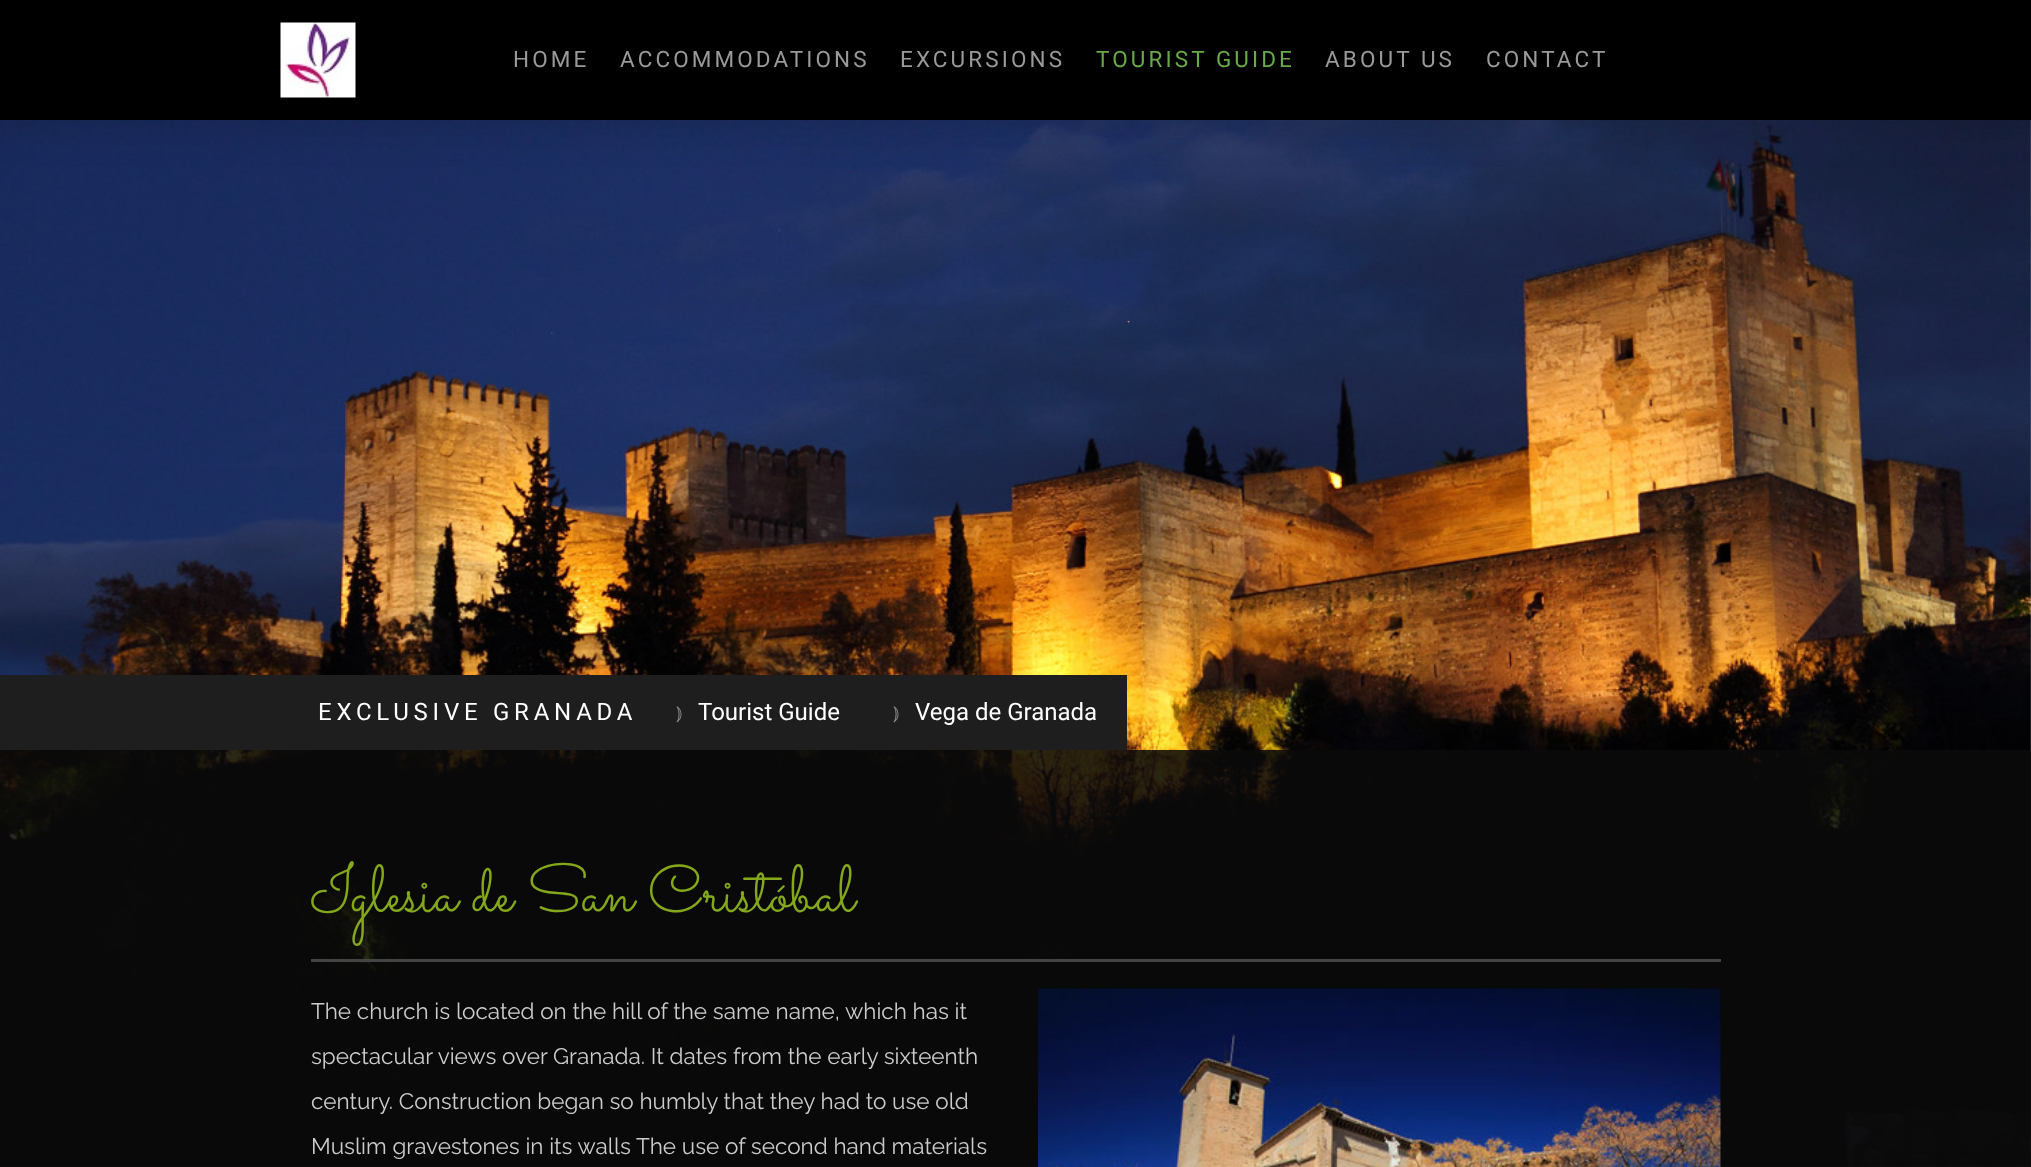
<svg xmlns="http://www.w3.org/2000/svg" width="2031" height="1167">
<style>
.a{font:22.5px Roboto;letter-spacing:3.1px;fill:#999}
.b{font:22.5px Roboto;letter-spacing:3.1px;fill:#68a94a}
.c{font:24px Roboto;letter-spacing:4.75px;fill:#fff}
.d{font:19px FreeSerif;fill:#8f8f8f}
.e{font:24px Roboto;fill:#fff}
.f{font:66px Sacramento;fill:#84a81a}
.g{font:100 22.5px Raleway;fill:#ccc}
</style>
<rect width="100%" height="100%" fill="#fff"/>
<image href="2.png" x="0" y="120" width="2031" height="1047"/>
<path fill="#00000033" filter="blur(22.5px)" d="M0 0h2031v120H0z"/>
<path fill="#000" d="M0 0h2031v120H0z"/>
<image href="1.png" x="280" y="22" width="76" height="76"/>
<path fill="#0a0a0ade" d="M0 750h2031v417H0z"/>
<path fill="#1e1e1e" d="M0 675h1127v75H0z"/>
<path fill="#444" d="M311 959h1410v3H311z"/>
<image href="3.png" x="1038" y="988" width="683" height="179"/>
<text class="a" x="513" y="67">HOME</text>
<text class="a" x="620" y="67">ACCOMMODATIONS</text>
<text class="a" x="900" y="67">EXCURSIONS</text>
<text class="b" x="1096" y="67">TOURIST GUIDE</text>
<text class="a" x="1325" y="67">ABOUT US</text>
<text class="a" x="1486" y="67">CONTACT</text>
<text class="c" x="318" y="720">EXCLUSIVE GRANADA</text>
<text class="d" x="676" y="719">⦆</text>
<text class="e" x="698" y="720">Tourist Guide</text>
<text class="d" x="893" y="719">⦆</text>
<text class="e" x="915" y="720">Vega de Granada</text>
<text class="f" x="311" y="911">Iglesia de San Cristóbal</text>
<text class="g" x="311" y="1019">The church is located on the hill of the same name, which has it</text>
<text class="g" x="311" y="1064">spectacular views over Granada. It dates from the early sixteenth</text>
<text class="g" x="311" y="1109">century. Construction began so humbly that they had to use old</text>
<text class="g" x="311" y="1154">Muslim gravestones in its walls The use of second hand materials</text>
</svg>
